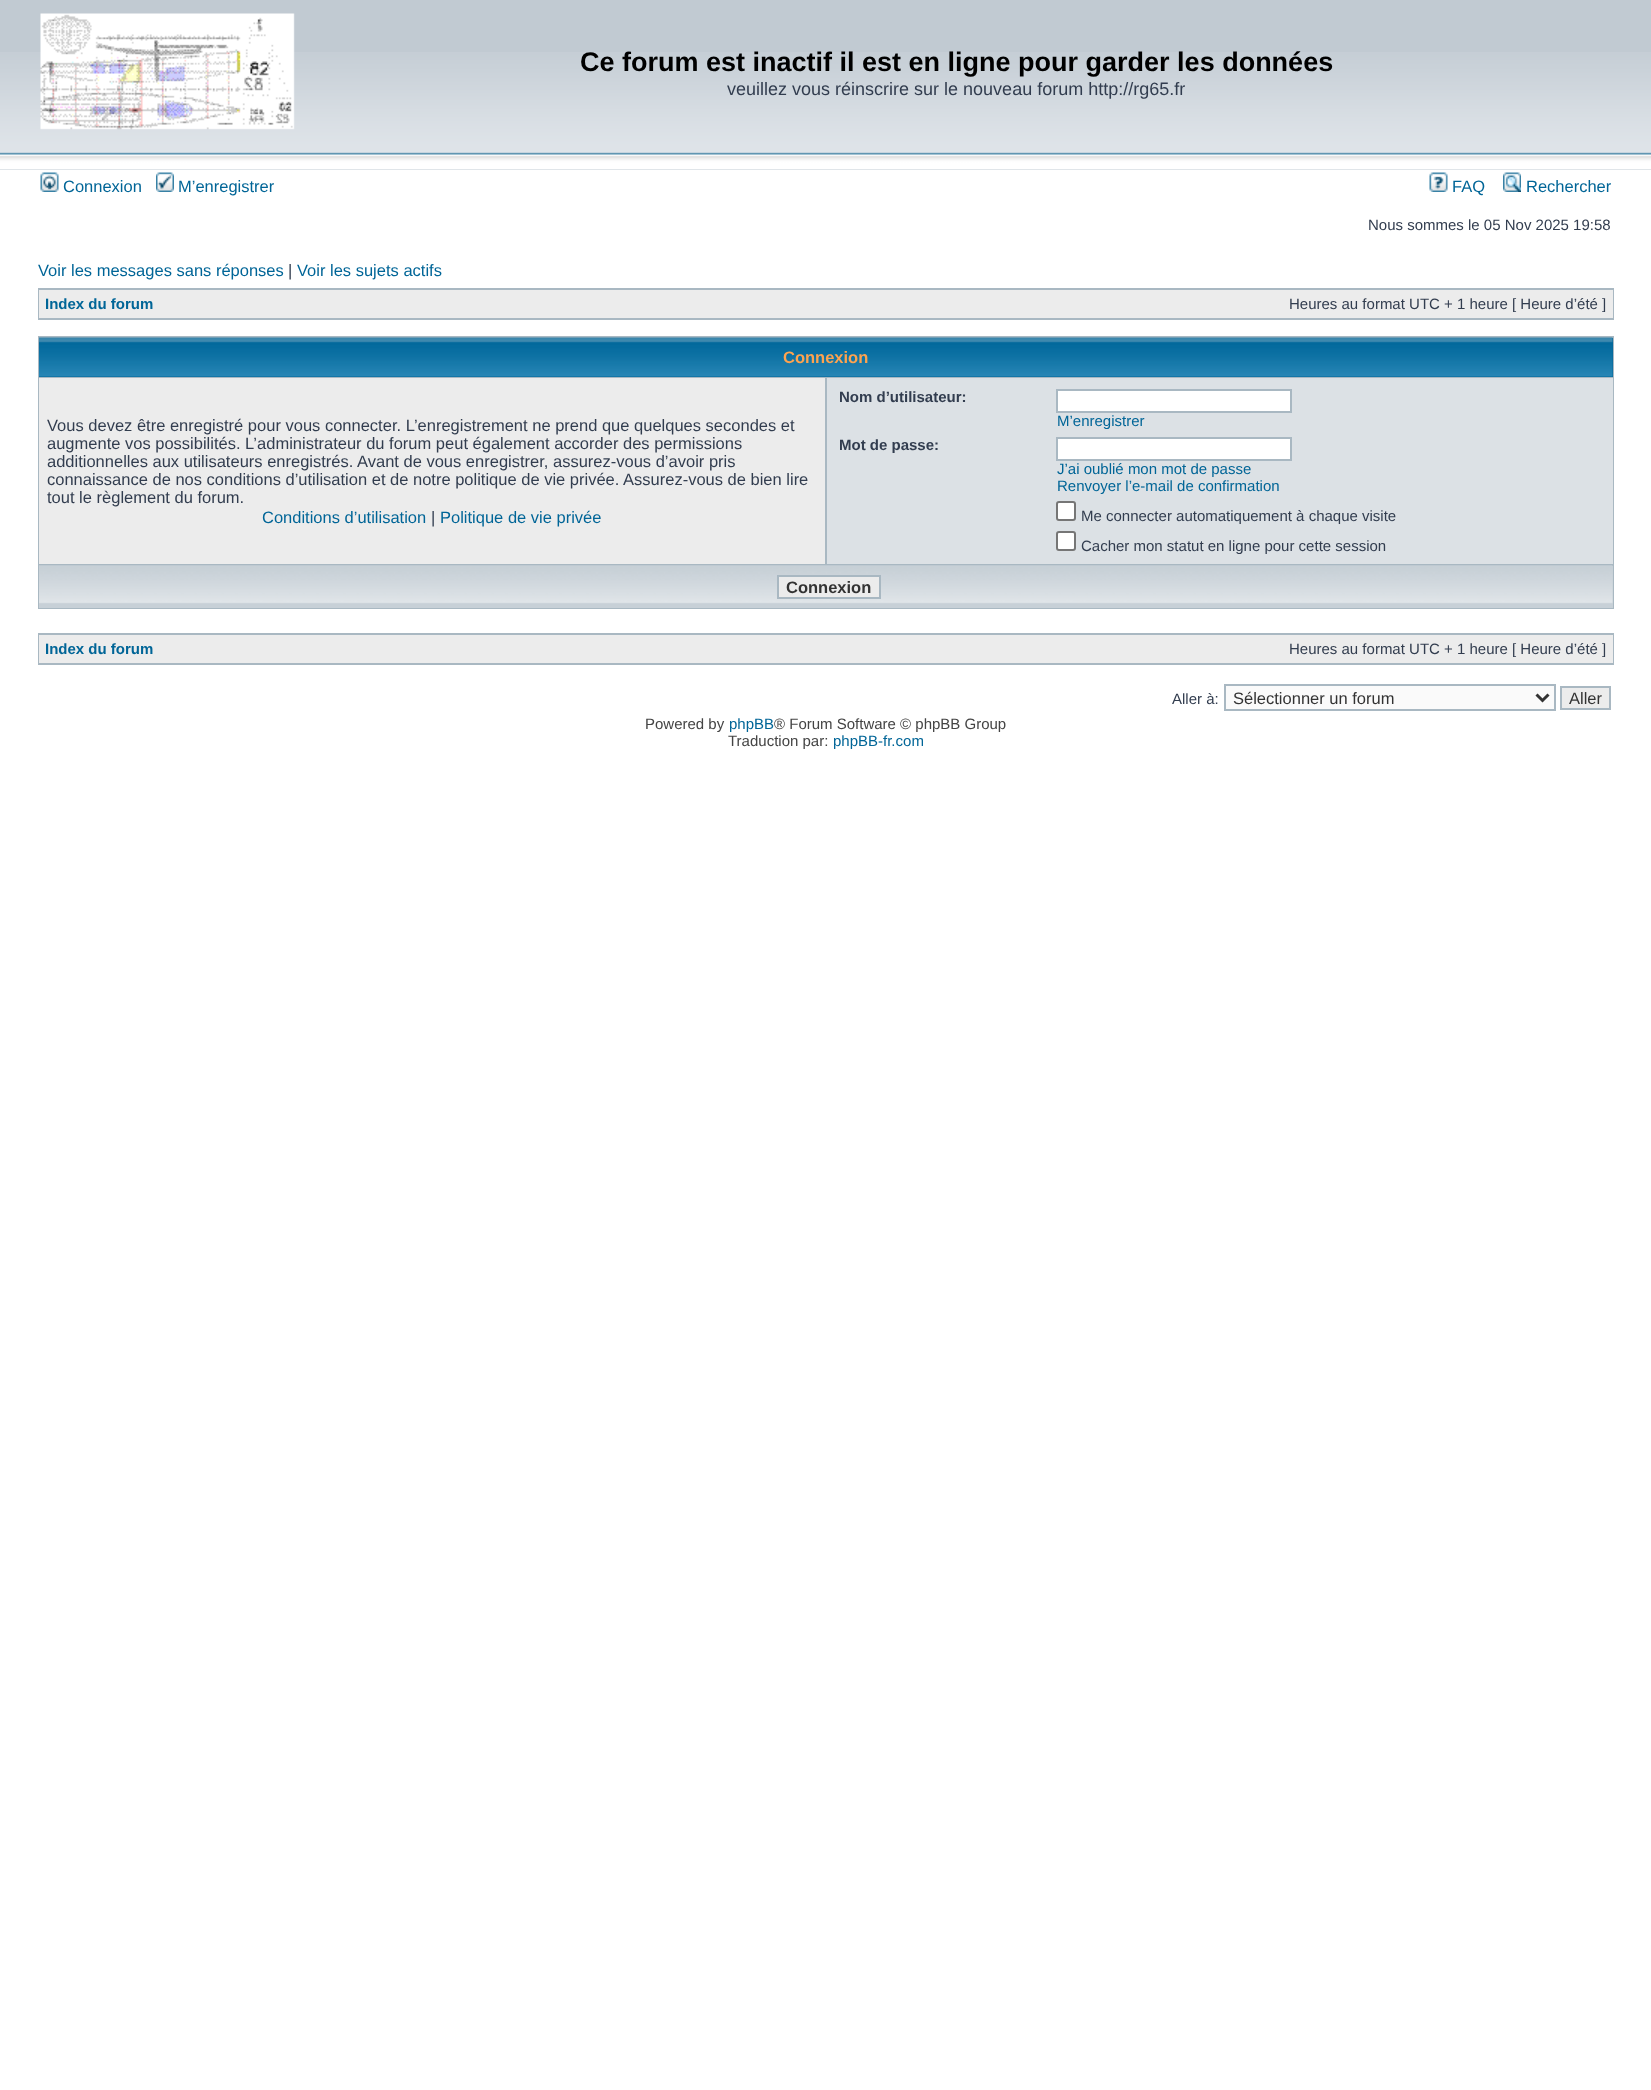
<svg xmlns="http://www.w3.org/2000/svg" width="1651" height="2090">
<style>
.a{font:bold 27px Liberation Sans;fill:#000}
.b{font:18px Liberation Sans;fill:#323d4f}
.c{font:16.5px Liberation Sans;fill:#006597}
.d{font:15px Liberation Sans;fill:#323d4f}
.e{font:16.5px Liberation Sans;fill:#323d4f}
.f{font:bold 15px Liberation Sans;fill:#006597}
.g{font:bold 16.5px Liberation Sans;fill:#ffa34f}
.h{font:bold 15px Liberation Sans;fill:#323d4f}
.i{font:15px Liberation Sans;fill:#006597}
.j{font:bold 16.5px Liberation Sans;fill:#333}
.k{font:16.5px Liberation Sans;fill:#333}
.l{font:15px Liberation Sans;fill:#444}
</style>
<rect width="100%" height="100%" fill="#fff"/>
<path fill="#c1cad2" d="M0 0h1651v170H0z"/>
<image href="1.png" x="0" y="52" width="1651" height="118"/>
<image href="2.png" x="40" y="13" width="255" height="117"/>
<image href="3.png" x="40" y="172" width="19" height="20"/>
<image href="4.png" x="156" y="172" width="18" height="20"/>
<image href="5.png" x="1429" y="172" width="19" height="20"/>
<image href="6.png" x="1503" y="172" width="18" height="20"/>
<path fill="#a9b8c2" d="M38 288h1576v32H38z"/>
<path fill="#ececec" d="M39 290h1574v28H39z"/>
<path fill="#a9b8c2" d="M38 336h1576v273H38z"/>
<path fill="#069" d="M39 338h1574v39H39z"/>
<image href="7.png" x="39" y="337" width="1574" height="40"/>
<path fill="#ececec" d="M39 378h786v186H39z"/>
<path fill="#dce1e5" d="M827 378h786v186H827z"/>
<path fill="#fff" stroke="#a9b8c2" stroke-width="2" d="M1057 390h234v22H1057z"/>
<path fill="#fff" stroke="#a9b8c2" stroke-width="2" d="M1057 438h234v22H1057z"/>
<rect fill="#fff" stroke="#767676" stroke-width="2" x="1057" y="502" width="18" height="18" rx="2"/>
<rect fill="#fff" stroke="#767676" stroke-width="2" x="1057" y="532" width="18" height="18" rx="2"/>
<path fill="#c7d0d7" d="M39 566h1574v42H39z"/>
<image href="8.png" x="39" y="565" width="1574" height="39"/>
<path fill="#ececec" stroke="#a9b8c2" stroke-width="2" d="M778 576h102v22H778z"/>
<path fill="#a9b8c2" d="M38 633h1576v32H38z"/>
<path fill="#ececec" d="M39 635h1574v28H39z"/>
<path fill="#fafafa" stroke="#a9b8c2" stroke-width="2" d="M1225 685h330v25H1225z"/>
<path fill="none" stroke="#333" stroke-width="3" d="M1536.5 694.5l6 6l6-6"/>
<path fill="#ececec" stroke="#a9b8c2" stroke-width="2" d="M1561 687h49v22H1561z"/>
<text class="a" x="580" y="71">Ce forum est inactif il est en ligne pour garder les données</text>
<text class="b" x="727" y="95">veuillez vous réinscrire sur le nouveau forum http://rg65.fr</text>
<text class="c" x="63" y="192">Connexion</text>
<text class="c" x="178" y="192">M’enregistrer</text>
<text class="c" x="1452" y="192">FAQ</text>
<text class="c" x="1526" y="192">Rechercher</text>
<text class="d" x="1368" y="230">Nous sommes le 05 Nov 2025 19:58</text>
<text class="c" x="38" y="276">Voir les messages sans réponses</text>
<text class="e" x="288" y="276">|</text>
<text class="c" x="297" y="276">Voir les sujets actifs</text>
<text class="f" x="45" y="309">Index du forum</text>
<text class="d" x="1289" y="309">Heures au format UTC + 1 heure [ Heure d’été ]</text>
<text class="g" x="783" y="363">Connexion</text>
<text class="e" x="47" y="431">Vous devez être enregistré pour vous connecter. L’enregistrement ne prend que quelques secondes et</text>
<text class="e" x="47" y="449">augmente vos possibilités. L’administrateur du forum peut également accorder des permissions</text>
<text class="e" x="47" y="467">additionnelles aux utilisateurs enregistrés. Avant de vous enregistrer, assurez-vous d’avoir pris</text>
<text class="e" x="47" y="485">connaissance de nos conditions d’utilisation et de notre politique de vie privée. Assurez-vous de bien lire</text>
<text class="e" x="47" y="503">tout le règlement du forum.</text>
<text class="c" x="262" y="523">Conditions d’utilisation</text>
<text class="e" x="431" y="523">|</text>
<text class="c" x="440" y="523">Politique de vie privée</text>
<text class="h" x="839" y="402">Nom d’utilisateur:</text>
<text class="i" x="1057" y="426">M’enregistrer</text>
<text class="h" x="839" y="450">Mot de passe:</text>
<text class="i" x="1057" y="474">J’ai oublié mon mot de passe</text>
<text class="i" x="1057" y="491">Renvoyer l’e-mail de confirmation</text>
<text class="d" x="1081" y="521">Me connecter automatiquement à chaque visite</text>
<text class="d" x="1081" y="551">Cacher mon statut en ligne pour cette session</text>
<text class="j" x="786" y="593">Connexion</text>
<text class="f" x="45" y="654">Index du forum</text>
<text class="d" x="1289" y="654">Heures au format UTC + 1 heure [ Heure d’été ]</text>
<text class="d" x="1172" y="704">Aller à:</text>
<text class="k" x="1233" y="704">Sélectionner un forum</text>
<text class="k" x="1569" y="704">Aller</text>
<text class="l" x="645" y="729">Powered by</text>
<text class="i" x="729" y="729">phpBB</text>
<text class="l" x="774" y="729">® Forum Software © phpBB Group</text>
<text class="l" x="728" y="746">Traduction par:</text>
<text class="i" x="833" y="746">phpBB-fr.com</text>
</svg>
